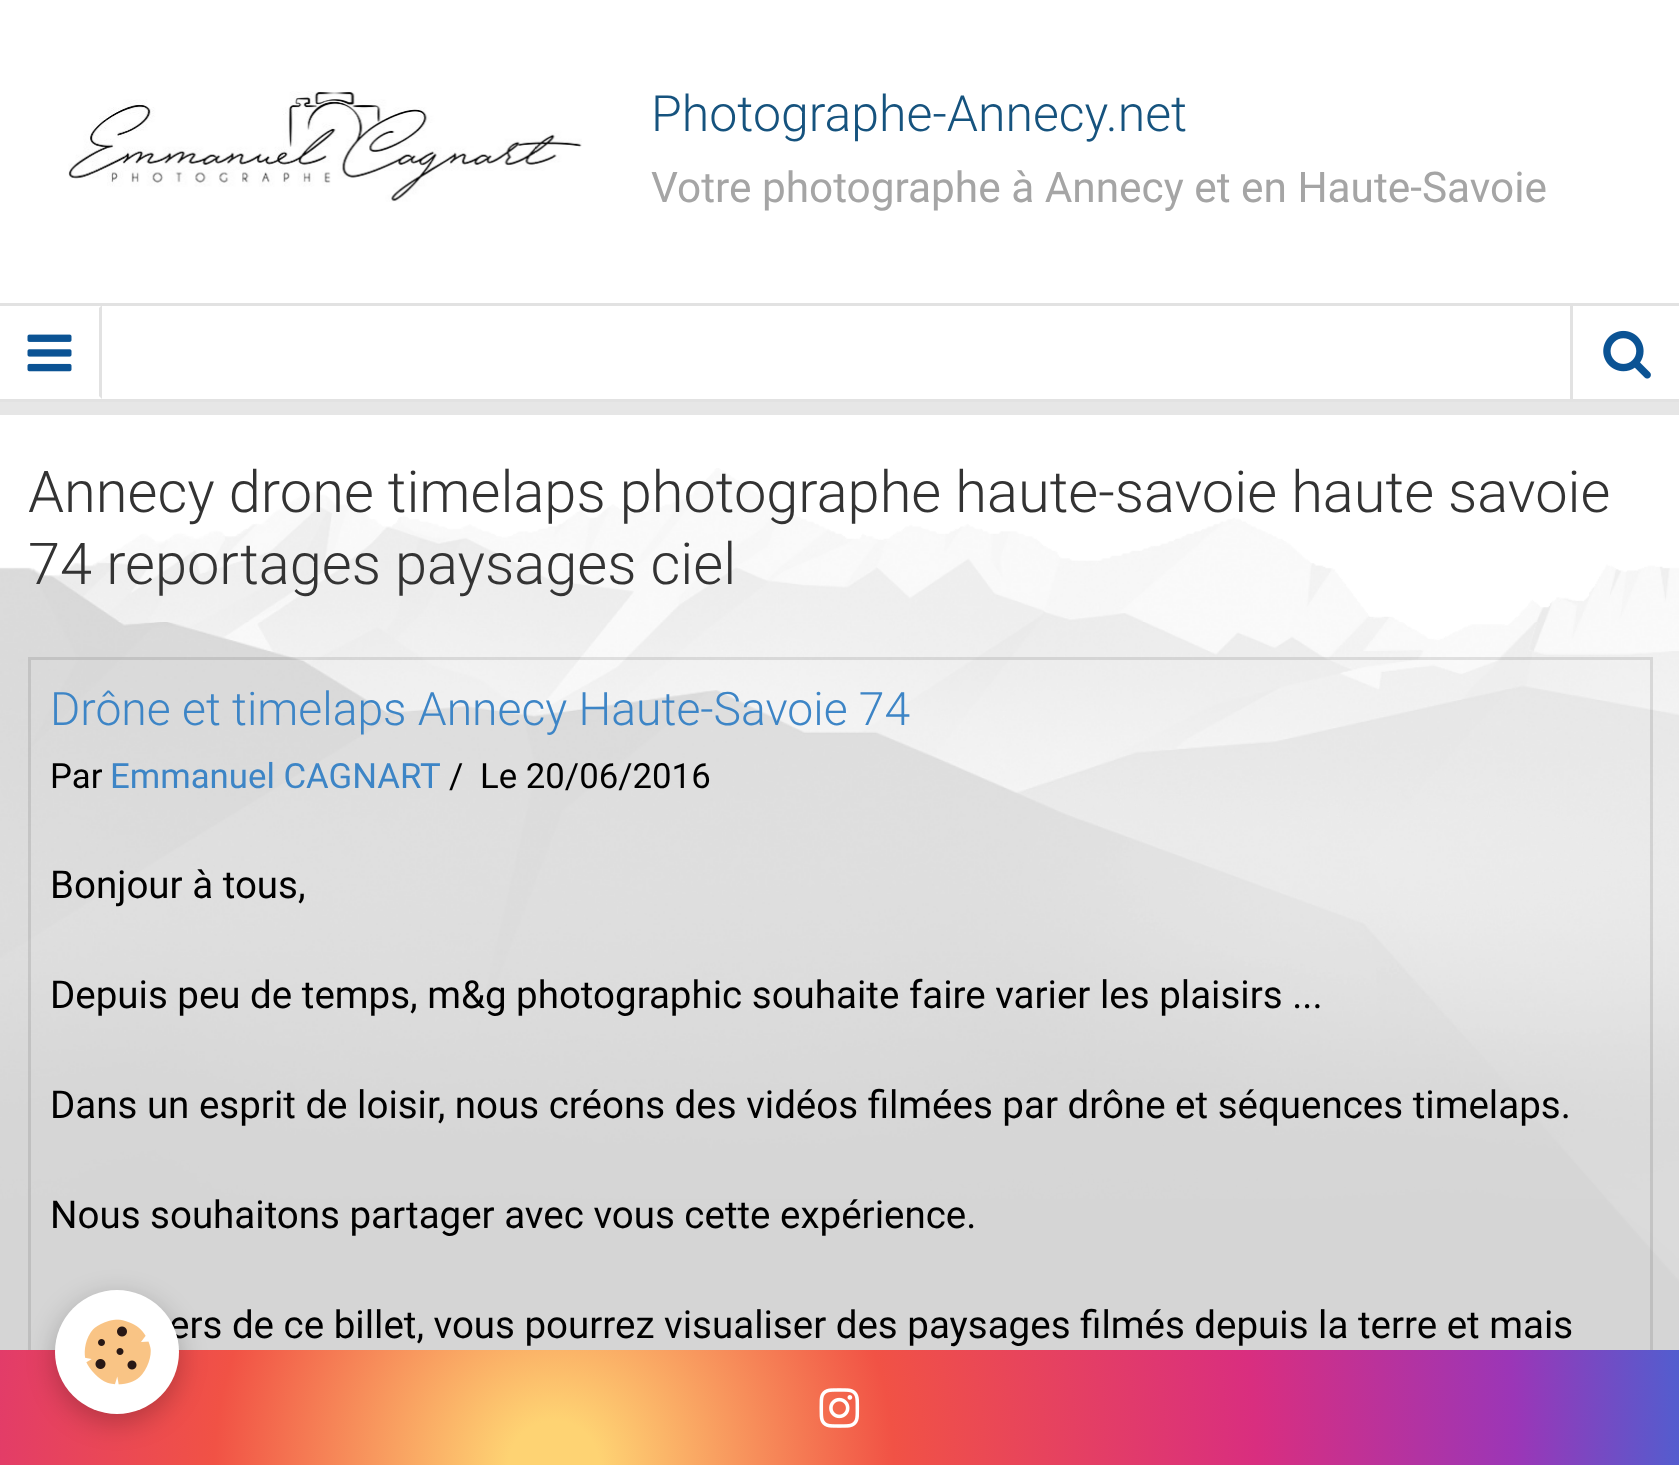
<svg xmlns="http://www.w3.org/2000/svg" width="1679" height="1465">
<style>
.a{font:300 50px Roboto;fill:#16537e}
.b{font:42.35px Roboto;fill:#a5a5a5}
.c{font:300 57.75px Roboto;fill:#333}
.d{font:300 46.25px Roboto;fill:#3d85c6}
.e{font:34.75px Roboto;fill:#000}
.f{font:34.75px Roboto;fill:#3d85c6}
.g{font:38.5px Roboto;fill:#000}
</style>
<defs>
<radialGradient id="g1" gradientUnits="userSpaceOnUse" cx="554" cy="1466" r="1132"><stop offset="0.04" stop-color="#fed373"/><stop offset="0.3" stop-color="#f15245"/><stop offset="0.62" stop-color="#d92e7f"/><stop offset="0.85" stop-color="#9b36b7"/><stop offset="1" stop-color="#515ecf"/></radialGradient>
</defs>
<rect width="100%" height="100%" fill="#fff"/>
<image href="1.png" x="0" y="468" width="1679" height="882"/>
<path fill="#e6e6e6" d="M0 402h1679v13H0z"/>
<image href="2.png" x="68" y="91" width="514" height="111"/>
<path fill="#e2e2e2" d="M0 303h1679v3H0z"/>
<path fill="#e2e2e2" d="M0 399h1679v3H0z"/>
<path fill="#e2e2e2" d="M102 305v94l-3-3v-88z"/>
<image href="3.png" x="27" y="334" width="45" height="38"/>
<path fill="#e2e2e2" d="M1570 305h3v94H1570z"/>
<image href="4.png" x="1603" y="330" width="48" height="49"/>
<path fill="none" stroke="#0000001a" stroke-width="3" d="M29.5 658.5h1622v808H29.5z"/>
<path fill="url(#g1)" d="M0 1350h1679v115H0z"/>
<rect fill="#0000003d" filter="blur(14px)" x="55" y="1298" width="124" height="124" rx="62"/>
<image href="6.png" x="819" y="1388" width="41" height="40"/>
<text class="a" x="651" y="131">Photographe-Annecy.net</text>
<text class="b" x="651" y="202">Votre photographe à Annecy et en Haute-Savoie</text>
<text class="c" x="28" y="512">Annecy drone timelaps photographe haute-savoie haute savoie</text>
<text class="c" x="28" y="584">74 reportages paysages ciel</text>
<text class="d" x="50" y="725">Drône et timelaps Annecy Haute-Savoie 74</text>
<text class="e" x="50" y="788">Par</text>
<text class="f" x="110" y="788">Emmanuel CAGNART</text>
<text class="e" x="449" y="788">/</text>
<text class="e" x="480" y="788">Le 20/06/2016</text>
<text class="g" x="50" y="898">Bonjour à tous,</text>
<text class="g" x="50" y="1008">Depuis peu de temps, m&amp;g photographic souhaite faire varier les plaisirs ...</text>
<text class="g" x="50" y="1118">Dans un esprit de loisir, nous créons des vidéos filmées par drône et séquences timelaps.</text>
<text class="g" x="50" y="1228">Nous souhaitons partager avec vous cette expérience.</text>
<text class="g" x="169" y="1338">ers de ce billet, vous pourrez visualiser des paysages filmés depuis la terre et mais</text>
<circle fill="#fff" cx="117" cy="1352" r="62"/>
<image href="5.png" x="84" y="1319" width="67" height="66"/>
</svg>
